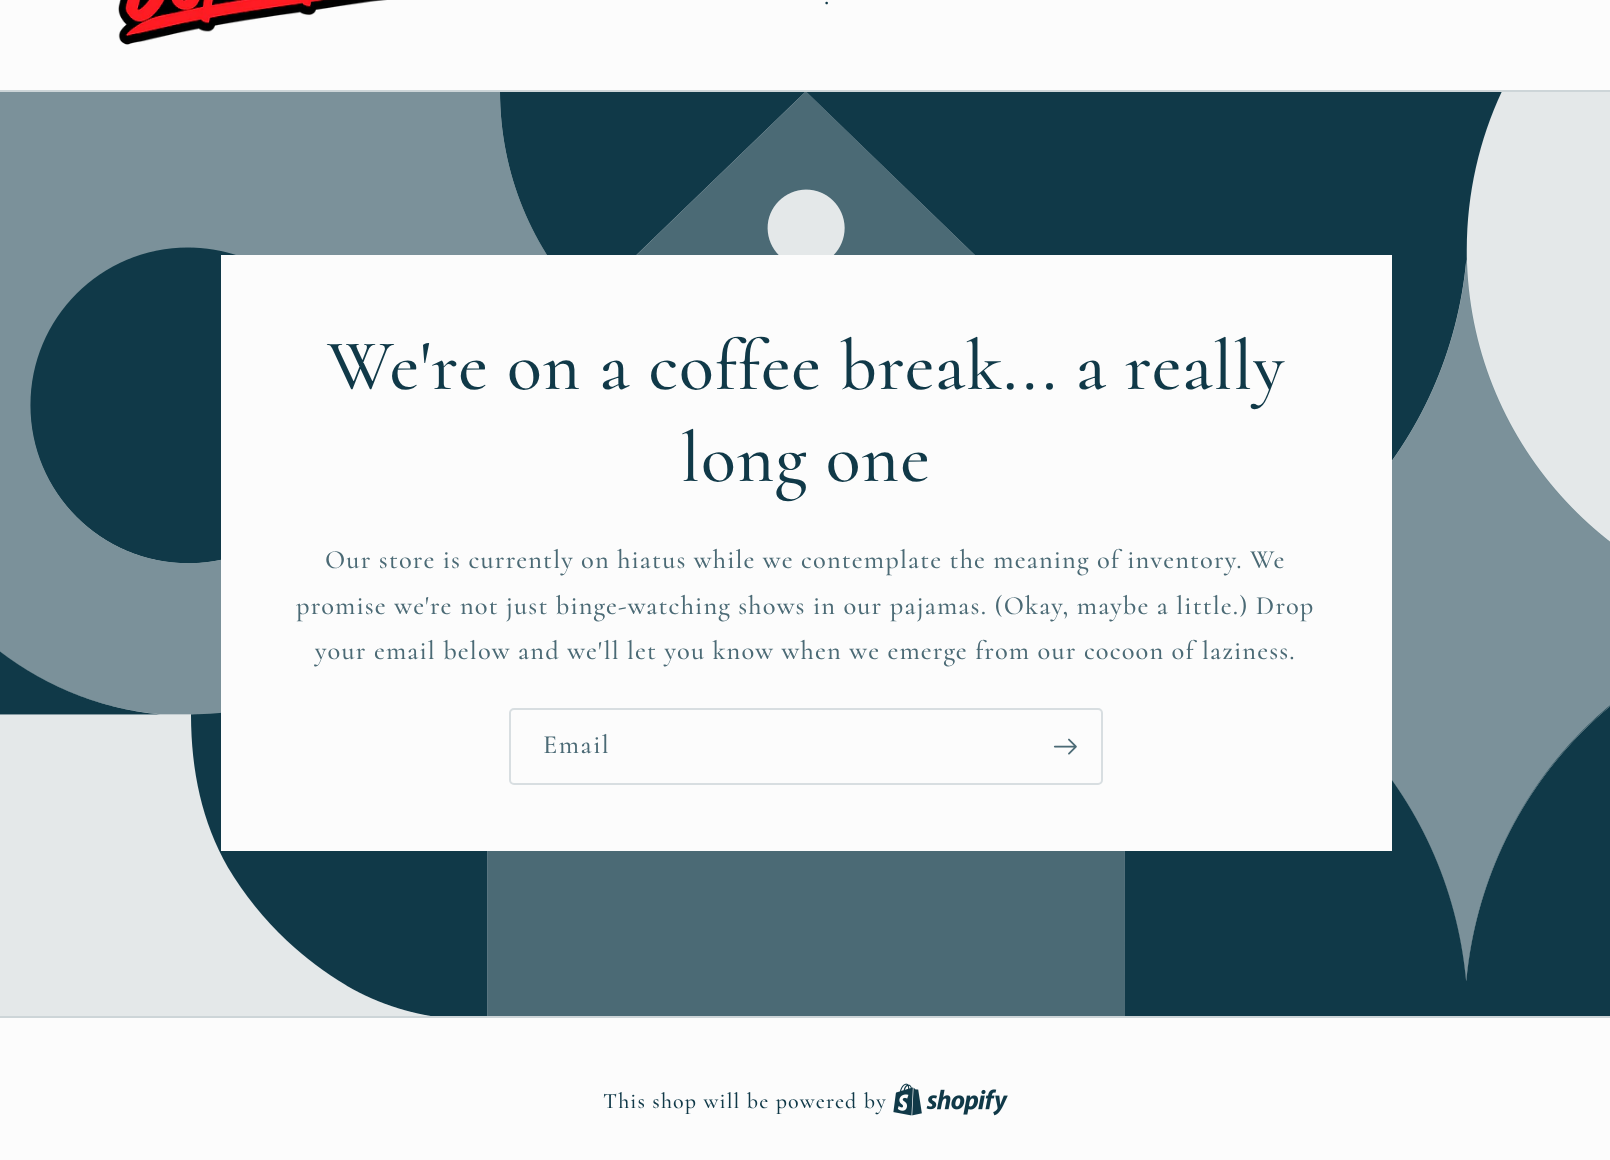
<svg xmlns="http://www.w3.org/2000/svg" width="1610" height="1160">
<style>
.a{font:500 26.4px Cormorant;letter-spacing:1.15px;fill:#103948}
.b{font:500 72px Cormorant;letter-spacing:1.1px;fill:#103948}
.c{font:500 26.4px Cormorant;letter-spacing:1.15px;fill:#4b6a75}
.d{font:500 26.4px Cormorant;letter-spacing:1.5px;fill:#4b6a75}
.e{font:500 22px Cormorant;letter-spacing:1.15px;fill:#103948}
</style>
<rect width="100%" height="100%" fill="#fcfcfc"/>
<image href="1.png" x="118" y="0" width="269" height="45"/>
<path fill="#cdd5d8" d="M0 90h1610v2H0z"/>
<image href="2.png" x="0" y="92" width="1610" height="924"/>
<path fill="#fcfcfc" d="M221 255h1171v596H221z"/>
<rect fill="none" stroke="#10394826" stroke-width="2" x="510" y="709" width="592" height="75" rx="4"/>
<image href="3.png" x="1053" y="738" width="24" height="17"/>
<path fill="#cdd5d8" d="M0 1016h1610v2H0z"/>
<image href="4.png" x="893" y="1083" width="115" height="33"/>
<text class="a" x="824" y="4">.</text>
<text class="b" x="327" y="389">We're on a coffee break... a really</text>
<text class="b" x="681" y="481">long one</text>
<text class="c" x="325" y="568">Our store is currently on hiatus while we contemplate the meaning of inventory. We</text>
<text class="c" x="296" y="614">promise we're not just binge-watching shows in our pajamas. (Okay, maybe a little.) Drop</text>
<text class="c" x="315" y="659">your email below and we'll let you know when we emerge from our cocoon of laziness.</text>
<text class="d" x="543" y="753">Email</text>
<text class="e" x="603" y="1108">This shop will be powered by</text>
</svg>
